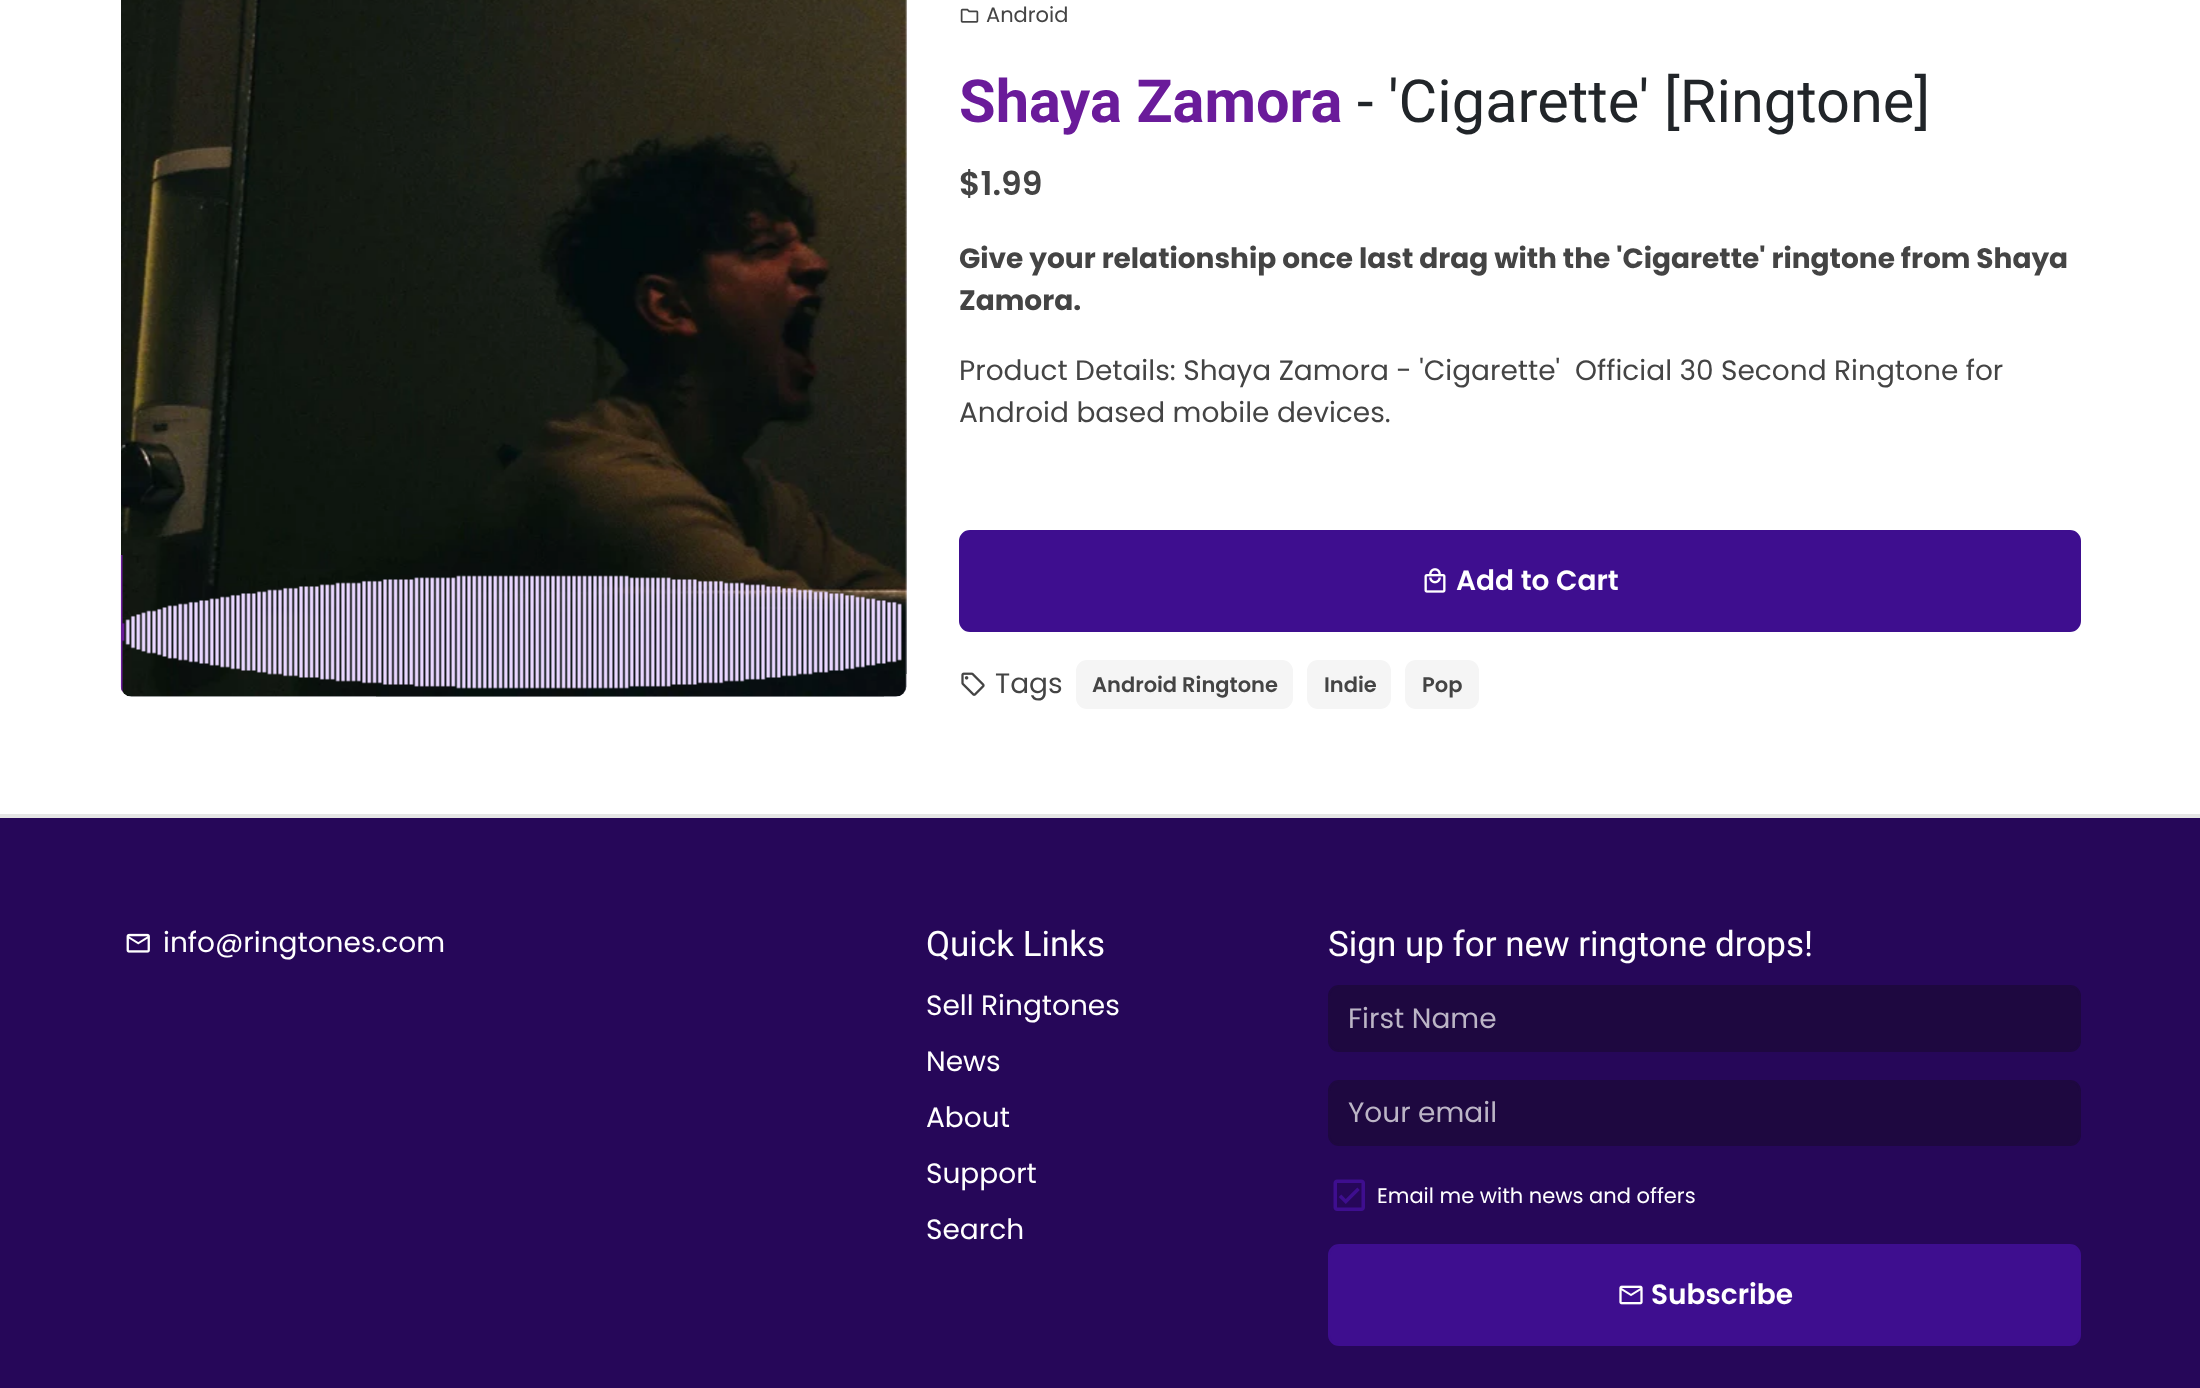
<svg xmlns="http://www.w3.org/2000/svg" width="2200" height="1388">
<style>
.a{font:21px Poppins;fill:#444}
.b{font:bold 59.5px Roboto;fill:#6a1b9a}
.c{font:59.5px Roboto;fill:#212529}
.d{font:600 33px Poppins;fill:#444}
.e{font:bold 28px Poppins;fill:#444}
.f{font:28px Poppins;fill:#444}
.g{font:600 28px Poppins;fill:#fff}
.h{font:600 21px Poppins;fill:#444}
.i{font:28px Poppins;fill:#fff}
.j{font:35px Roboto;fill:#fff}
.k{font:28px Poppins;fill:#bcb5c6}
.l{font:21px Poppins;fill:#fff}
</style>
<rect width="100%" height="100%" fill="#fff"/>
<rect fill="#faf8ff" x="121" y="-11" width="786" height="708" rx="11"/>
<image href="1.png" x="121" y="0" width="786" height="697"/>
<image href="2.png" x="120" y="555" width="782" height="138"/>
<image href="3.png" x="960" y="8" width="19" height="15"/>
<rect fill="#3e0e8f" stroke="#3e0e8f" stroke-width="2" x="960" y="531" width="1120" height="100" rx="10"/>
<image href="4.png" x="1424" y="568" width="22" height="25"/>
<image href="5.png" x="961" y="672" width="24" height="24"/>
<rect fill="#f5f5f5" x="1076" y="660" width="217" height="49" rx="11"/>
<rect fill="#f5f5f5" x="1307" y="660" width="84" height="49" rx="11"/>
<rect fill="#f5f5f5" x="1405" y="660" width="74" height="49" rx="11"/>
<path fill="#e5e5e5" d="M0 814h2200v4H0z"/>
<path fill="#260759" d="M0 818h2200v570H0z"/>
<image href="6.png" x="126" y="933" width="24" height="20"/>
<rect fill="#1e0840" stroke="#1e0840" stroke-width="2" x="1329" y="986" width="751" height="65" rx="10"/>
<rect fill="#1e0840" stroke="#1e0840" stroke-width="2" x="1329" y="1081" width="751" height="64" rx="10"/>
<image href="7.png" x="1333" y="1179" width="32" height="32"/>
<rect fill="#3e0e8f" stroke="#3e0e8f" stroke-width="2" x="1329" y="1245" width="751" height="100" rx="10"/>
<image href="8.png" x="1619" y="1285" width="24" height="20"/>
<text class="a" x="986" y="22">Android</text>
<text class="b" x="959" y="122">Shaya Zamora</text>
<text class="c" x="1357" y="122">- 'Cigarette' [Ringtone]</text>
<text class="d" x="959" y="195">$1.99</text>
<text class="e" x="959" y="268">Give your relationship once last drag with the 'Cigarette' ringtone from Shaya</text>
<text class="e" x="959" y="310">Zamora.</text>
<text class="f" x="959" y="380">Product Details: Shaya Zamora - 'Cigarette'</text>
<text class="f" x="1575" y="380">Official 30 Second Ringtone for</text>
<text class="f" x="959" y="422">Android based mobile devices.</text>
<text class="g" x="1456" y="590">Add to Cart</text>
<text class="f" x="995" y="693">Tags</text>
<text class="h" x="1092" y="692">Android Ringtone</text>
<text class="h" x="1324" y="692">Indie</text>
<text class="h" x="1422" y="692">Pop</text>
<text class="i" x="163" y="952">info@ringtones.com</text>
<text class="j" x="926" y="956">Quick Links</text>
<text class="i" x="926" y="1015">Sell Ringtones</text>
<text class="i" x="926" y="1071">News</text>
<text class="i" x="926" y="1127">About</text>
<text class="i" x="926" y="1183">Support</text>
<text class="i" x="926" y="1239">Search</text>
<text class="j" x="1328" y="956">Sign up for new ringtone drops!</text>
<text class="k" x="1348" y="1028">First Name</text>
<text class="k" x="1348" y="1122">Your email</text>
<text class="l" x="1377" y="1203">Email me with news and offers</text>
<text class="g" x="1651" y="1304">Subscribe</text>
</svg>
